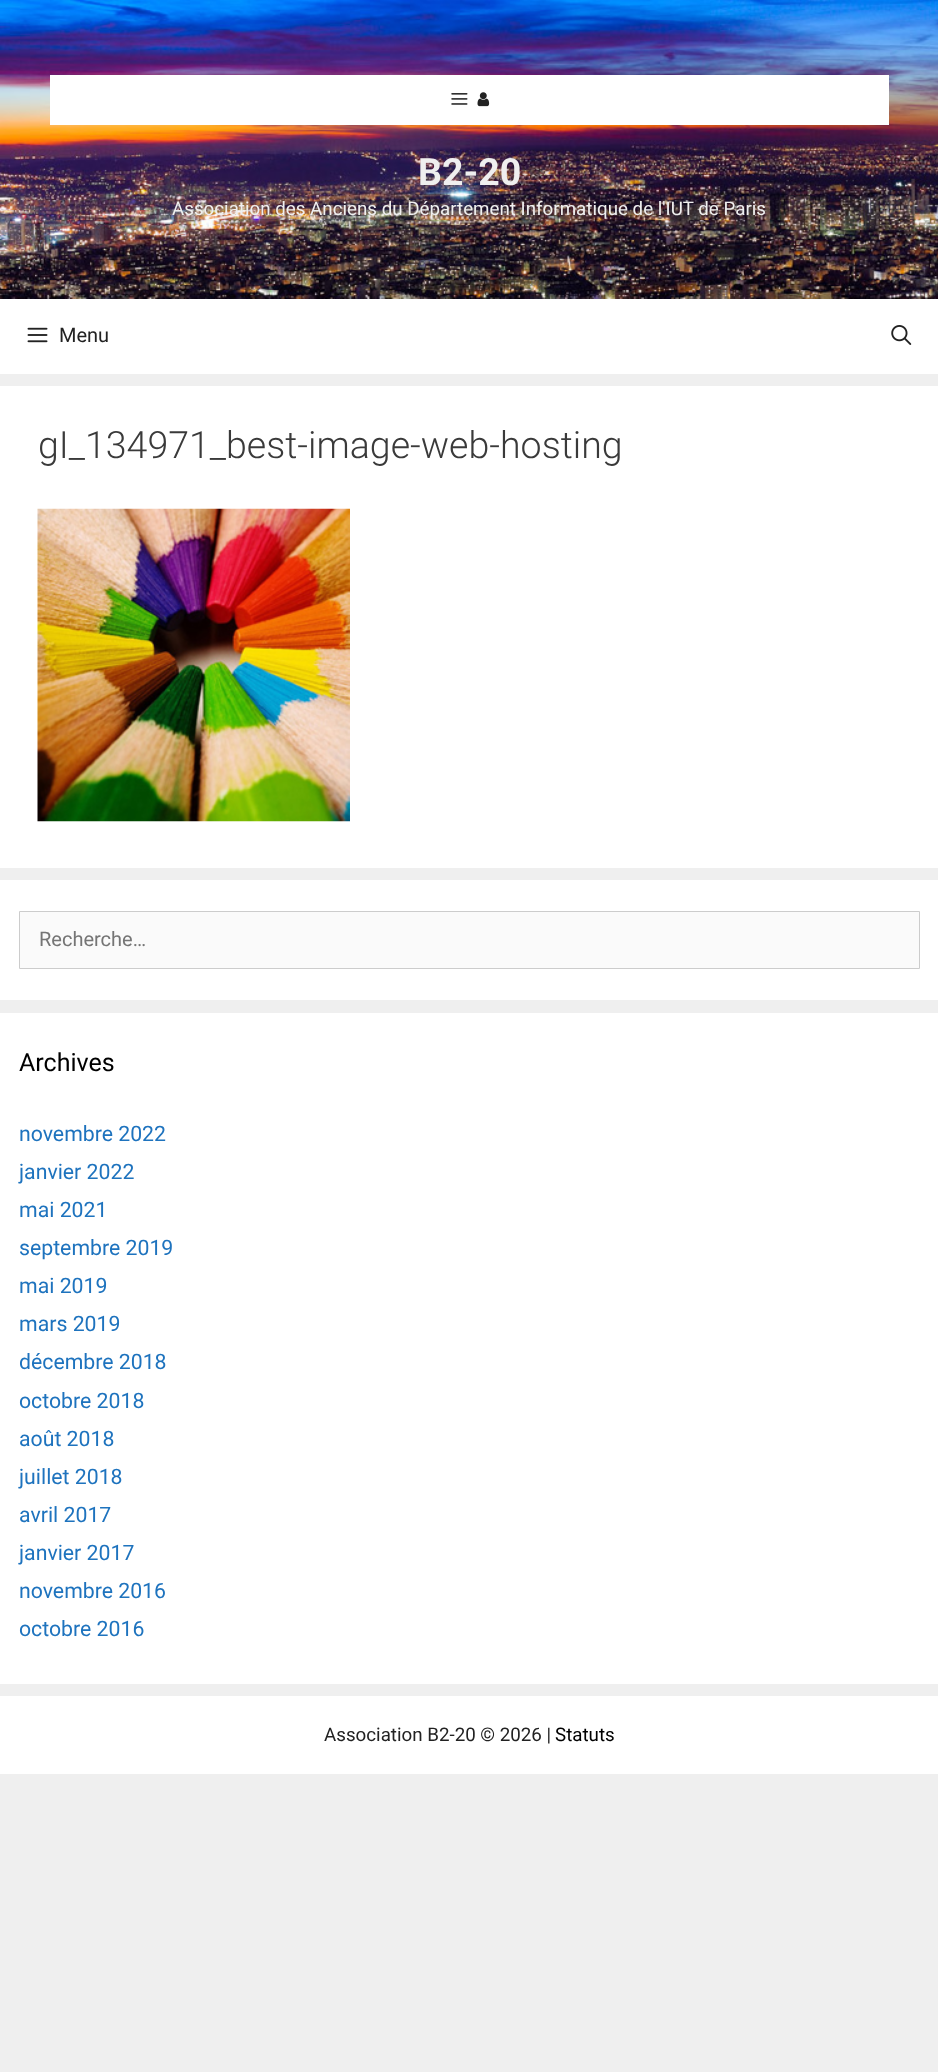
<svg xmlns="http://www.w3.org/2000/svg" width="938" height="2072">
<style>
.a{font:bold 37.5px Roboto;fill:#efefef}
.b{font:18.75px Roboto;fill:#efefef}
.c{font:20px Roboto;fill:#222}
.d{font:300 37.5px Roboto;fill:#3a3a3a}
.e{font:20px Roboto;fill:#757575}
.f{font:25px Roboto;fill:#000}
.g{font:21.25px Roboto;fill:#1e73be}
.h{font:18.75px Roboto;fill:#222}
.i{font:18.75px Roboto;fill:#000}
</style>
<rect width="100%" height="100%" fill="#efefef"/>
<image href="1.png" x="0" y="0" width="938" height="299"/>
<path fill="#fff" d="M50 75h839v50H50z"/>
<image href="2.png" x="451" y="93" width="17" height="12"/>
<image href="3.png" x="477" y="92" width="13" height="15"/>
<path fill="#fff" d="M0 299h938v75H0z"/>
<image href="4.png" x="27" y="327" width="21" height="16"/>
<image href="5.png" x="891" y="325" width="21" height="20"/>
<path fill="#fff" d="M0 386h938v482H0z"/>
<image href="6.png" x="37" y="508" width="313" height="314"/>
<path fill="#fff" d="M0 880h938v120H0z"/>
<path fill="#fafafa" stroke="#ccc" d="M19.5 911.5h900v57H19.5z"/>
<path fill="#fff" d="M0 1013h938v671H0z"/>
<path fill="#fff" d="M0 1696h938v78H0z"/>
<text class="a" x="418" y="185">B2-20</text>
<text class="b" x="172" y="215">Association des Anciens du Département Informatique de l'IUT de Paris</text>
<text class="c" x="59" y="342">Menu</text>
<text class="d" x="38" y="458">gI_134971_best-image-web-hosting</text>
<text class="e" x="39" y="946">Recherche…</text>
<text class="f" x="19" y="1071">Archives</text>
<text class="g" x="19" y="1141">novembre 2022</text>
<text class="g" x="19" y="1179">janvier 2022</text>
<text class="g" x="19" y="1217">mai 2021</text>
<text class="g" x="19" y="1255">septembre 2019</text>
<text class="g" x="19" y="1293">mai 2019</text>
<text class="g" x="19" y="1331">mars 2019</text>
<text class="g" x="19" y="1369">décembre 2018</text>
<text class="g" x="19" y="1408">octobre 2018</text>
<text class="g" x="19" y="1446">août 2018</text>
<text class="g" x="19" y="1484">juillet 2018</text>
<text class="g" x="19" y="1522">avril 2017</text>
<text class="g" x="19" y="1560">janvier 2017</text>
<text class="g" x="19" y="1598">novembre 2016</text>
<text class="g" x="19" y="1636">octobre 2016</text>
<text class="h" x="324" y="1741">Association B2-20 © 2026 |</text>
<text class="i" x="555" y="1741">Statuts</text>
</svg>
